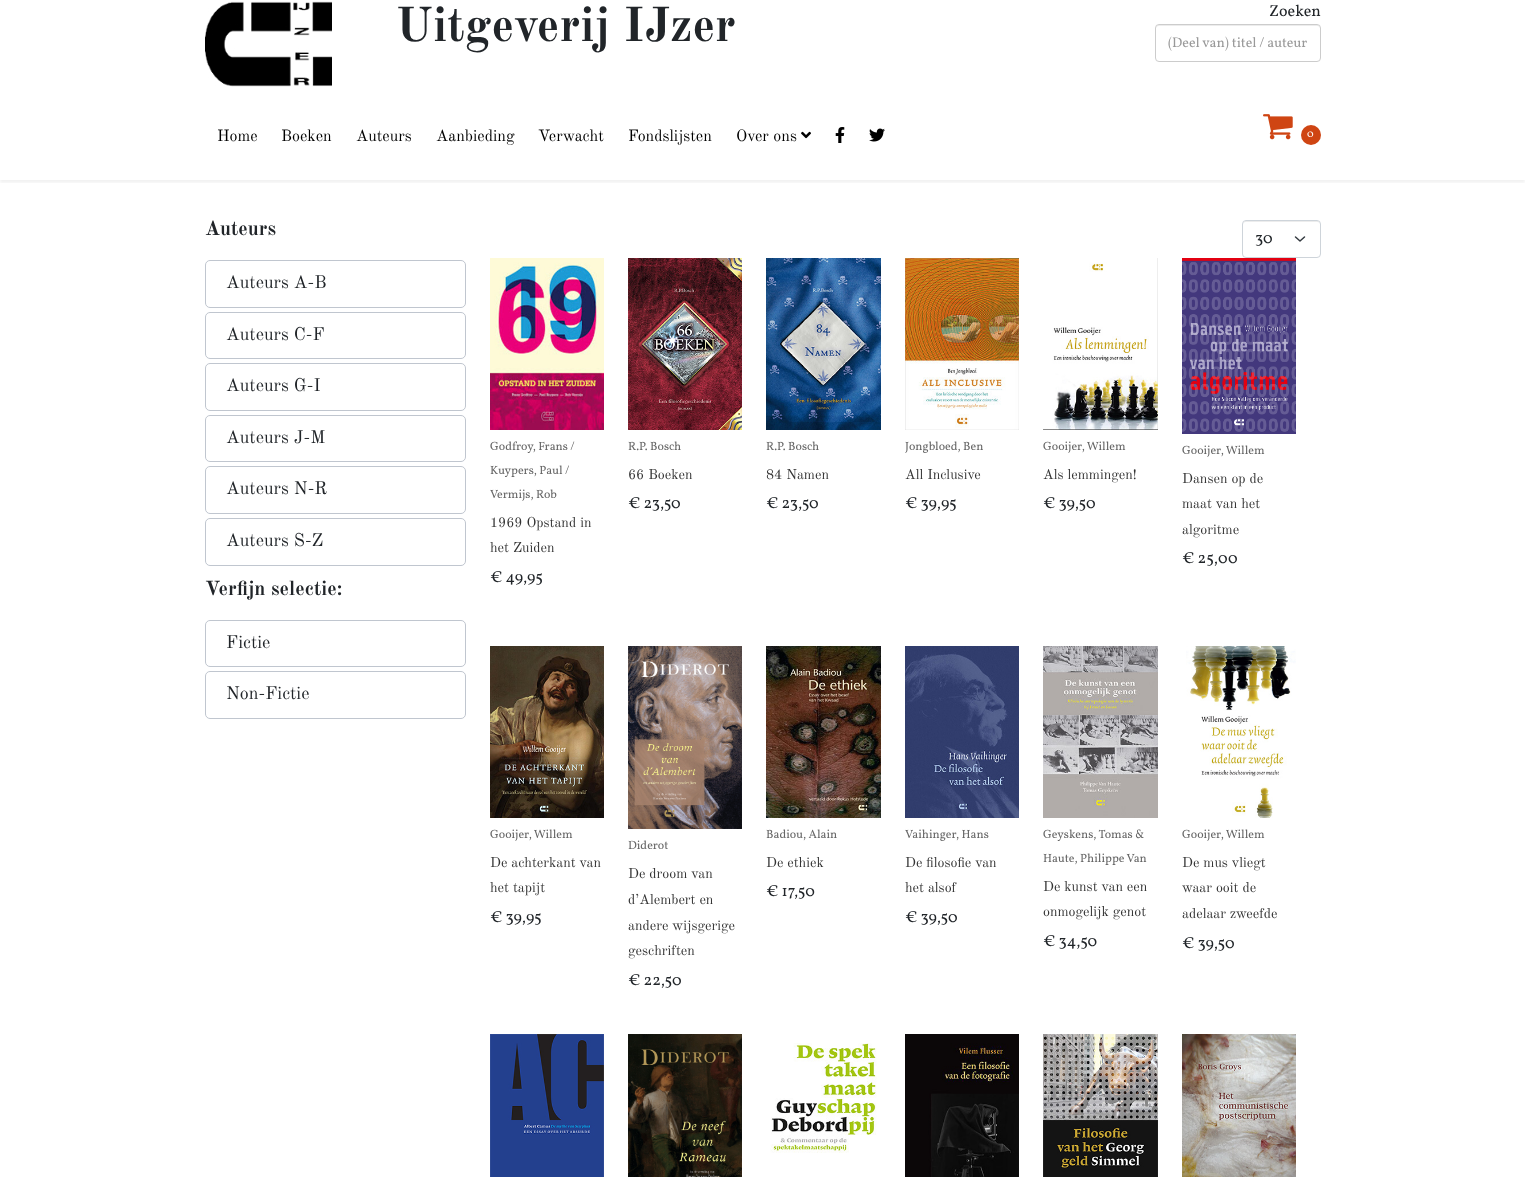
<svg xmlns="http://www.w3.org/2000/svg" width="1525" height="1177">
<style>
.a{font:bold 48px Old Standard TT;fill:#212529}
.b{font:16px Vollkorn;fill:#212529}
.c{font:14px Vollkorn;fill:#999}
.d{font:16px Old Standard TT;fill:#000}
.e{font:11px Vollkorn;fill:#fff}
.f{font:bold 20px Old Standard TT;fill:#212529}
.g{font:18px Old Standard TT;fill:#212529}
.h{font:12px Vollkorn;fill:#666}
.i{font:14px Old Standard TT;fill:#333}
</style>
<defs>
<clipPath id="clip1"><path d="M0 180h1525v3H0z"/></clipPath>
</defs>
<rect width="100%" height="100%" fill="#fff"/>
<image href="1.png" x="205" y="1" width="127" height="86"/>
<path fill="#ececec" d="M1159 26h158c2 0 3 1 3 3c0-2-1-4-3-4h-158c-2 0-3 2-3 4c0-2 1-3 3-3z"/>
<rect fill="none" stroke="#ccc" x="1155.5" y="24.5" width="165" height="37" rx="3.5"/>
<g clip-path="url(#clip1)">
<path fill="#0000000d" filter="blur(1.5px)" d="M0 93h1525v90H0z"/>
</g>
<image href="2.png" x="801" y="131" width="10" height="8"/>
<image href="3.png" x="835" y="127" width="10" height="16"/>
<image href="4.png" x="869" y="128" width="16" height="14"/>
<image href="5.png" x="1263" y="114" width="30" height="26"/>
<circle fill="#cf4513" cx="1311" cy="135" r="10"/>
<rect fill="none" stroke="#c0c6cf" x="205.5" y="260.5" width="260" height="47" rx="4.5"/>
<rect fill="none" stroke="#c0c6cf" x="205.5" y="312.5" width="260" height="46" rx="4.5"/>
<rect fill="none" stroke="#c0c6cf" x="205.5" y="363.5" width="260" height="47" rx="4.5"/>
<rect fill="none" stroke="#c0c6cf" x="205.5" y="415.5" width="260" height="46" rx="4.5"/>
<rect fill="none" stroke="#c0c6cf" x="205.5" y="466.5" width="260" height="47" rx="4.5"/>
<rect fill="none" stroke="#c0c6cf" x="205.5" y="518.5" width="260" height="47" rx="4.5"/>
<rect fill="none" stroke="#c0c6cf" x="205.5" y="620.5" width="260" height="46" rx="4.5"/>
<rect fill="none" stroke="#c0c6cf" x="205.5" y="671.5" width="260" height="47" rx="4.5"/>
<path fill="none" stroke="#343a40" stroke-width="1.5" stroke-linecap="round" stroke-linejoin="round" d="M1295.5 237l4.5 4l4.5-4"/>
<path fill="#ececec" d="M1246 222h71c2 0 3 1 3 3c0-7-11-4-15-4h-47c-4 0-15-3-15 4c0-2 1-3 3-3z"/>
<rect fill="none" stroke="#ced4da" x="1242.5" y="220.5" width="78" height="37" rx="3.5"/>
<image href="6.png" x="490" y="258" width="114" height="172"/>
<image href="7.png" x="628" y="258" width="114" height="172"/>
<image href="8.png" x="766" y="258" width="115" height="172"/>
<image href="9.png" x="905" y="258" width="114" height="172"/>
<image href="10.png" x="1043" y="258" width="115" height="172"/>
<image href="11.png" x="1182" y="258" width="114" height="176"/>
<image href="12.png" x="490" y="646" width="114" height="172"/>
<image href="13.png" x="628" y="646" width="114" height="183"/>
<image href="14.png" x="766" y="646" width="115" height="172"/>
<image href="15.png" x="905" y="646" width="114" height="172"/>
<image href="16.png" x="1043" y="646" width="115" height="172"/>
<image href="17.png" x="1186" y="646" width="110" height="172"/>
<image href="18.png" x="490" y="1034" width="114" height="143"/>
<image href="19.png" x="628" y="1034" width="114" height="143"/>
<image href="20.png" x="770" y="1043" width="107" height="110"/>
<image href="21.png" x="905" y="1034" width="114" height="143"/>
<image href="22.png" x="1043" y="1034" width="115" height="143"/>
<image href="23.png" x="1182" y="1034" width="114" height="143"/>
<text class="a" x="395" y="41">Uitgeverij IJzer</text>
<text class="b" x="1269" y="16">Zoeken</text>
<text class="c" x="1168" y="47">(Deel van) titel / auteur</text>
<text class="d" x="217" y="141">Home</text>
<text class="d" x="281" y="141">Boeken</text>
<text class="d" x="356" y="141">Auteurs</text>
<text class="d" x="436" y="141">Aanbieding</text>
<text class="d" x="538" y="141">Verwacht</text>
<text class="d" x="628" y="141">Fondslijsten</text>
<text class="d" x="736" y="141">Over ons</text>
<text class="e" x="1307" y="137">0</text>
<text class="f" x="205" y="235">Auteurs</text>
<text class="g" x="226" y="288">Auteurs A-B</text>
<text class="g" x="226" y="340">Auteurs C-F</text>
<text class="g" x="226" y="391">Auteurs G-I</text>
<text class="g" x="226" y="443">Auteurs J-M</text>
<text class="g" x="226" y="494">Auteurs N-R</text>
<text class="g" x="226" y="546">Auteurs S-Z</text>
<text class="f" x="205" y="595">Verfijn selectie:</text>
<text class="g" x="226" y="648">Fictie</text>
<text class="g" x="226" y="699">Non-Fictie</text>
<text class="b" x="1255" y="243">30</text>
<text class="h" x="490" y="450">Godfroy, Frans /</text>
<text class="h" x="490" y="474">Kuypers, Paul /</text>
<text class="h" x="490" y="498">Vermijs, Rob</text>
<text class="i" x="490" y="527">1969 Opstand in</text>
<text class="i" x="490" y="552">het Zuiden</text>
<text class="b" x="490" y="582">€ 49,95</text>
<text class="h" x="628" y="450">R.P. Bosch</text>
<text class="i" x="628" y="479">66 Boeken</text>
<text class="b" x="628" y="508">€ 23,50</text>
<text class="h" x="766" y="450">R.P. Bosch</text>
<text class="i" x="766" y="479">84 Namen</text>
<text class="b" x="766" y="508">€ 23,50</text>
<text class="h" x="905" y="450">Jongbloed, Ben</text>
<text class="i" x="905" y="479">All Inclusive</text>
<text class="b" x="905" y="508">€ 39,95</text>
<text class="h" x="1043" y="450">Gooijer, Willem</text>
<text class="i" x="1043" y="479">Als lemmingen!</text>
<text class="b" x="1043" y="508">€ 39,50</text>
<text class="h" x="1182" y="454">Gooijer, Willem</text>
<text class="i" x="1182" y="483">Dansen op de</text>
<text class="i" x="1182" y="508">maat van het</text>
<text class="i" x="1182" y="534">algoritme</text>
<text class="b" x="1182" y="563">€ 25,00</text>
<text class="h" x="490" y="838">Gooijer, Willem</text>
<text class="i" x="490" y="867">De achterkant van</text>
<text class="i" x="490" y="892">het tapijt</text>
<text class="b" x="490" y="922">€ 39,95</text>
<text class="h" x="628" y="849">Diderot</text>
<text class="i" x="628" y="878">De droom van</text>
<text class="i" x="628" y="904">d’Alembert en</text>
<text class="i" x="628" y="930">andere wijsgerige</text>
<text class="i" x="628" y="955">geschriften</text>
<text class="b" x="628" y="985">€ 22,50</text>
<text class="h" x="766" y="838">Badiou, Alain</text>
<text class="i" x="766" y="867">De ethiek</text>
<text class="b" x="766" y="896">€ 17,50</text>
<text class="h" x="905" y="838">Vaihinger, Hans</text>
<text class="i" x="905" y="867">De filosofie van</text>
<text class="i" x="905" y="892">het alsof</text>
<text class="b" x="905" y="922">€ 39,50</text>
<text class="h" x="1043" y="838">Geyskens, Tomas &amp;</text>
<text class="h" x="1043" y="862">Haute, Philippe Van</text>
<text class="i" x="1043" y="891">De kunst van een</text>
<text class="i" x="1043" y="916">onmogelijk genot</text>
<text class="b" x="1043" y="946">€ 34,50</text>
<text class="h" x="1182" y="838">Gooijer, Willem</text>
<text class="i" x="1182" y="867">De mus vliegt</text>
<text class="i" x="1182" y="892">waar ooit de</text>
<text class="i" x="1182" y="918">adelaar zweefde</text>
<text class="b" x="1182" y="948">€ 39,50</text>
</svg>
